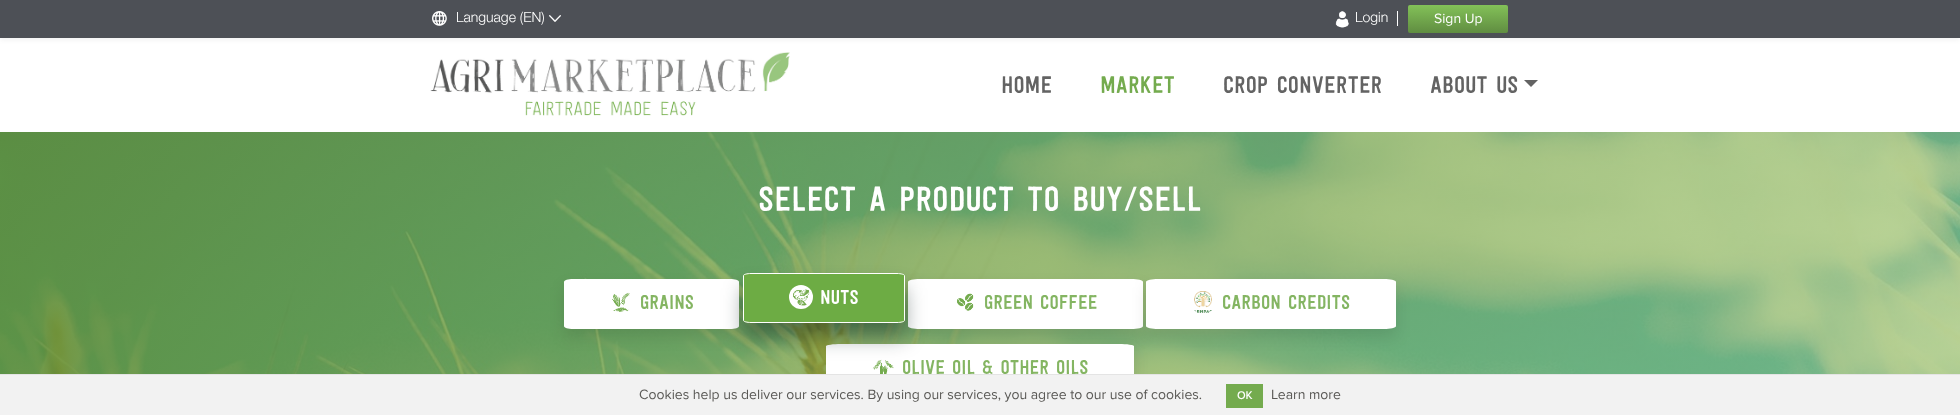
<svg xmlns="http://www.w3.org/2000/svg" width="1960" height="415">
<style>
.a{font:300 14px Helvetica Neue;fill:#fff}
.b{font:14px Proxima Nova;fill:#fff}
.c{font:24px 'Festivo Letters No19';fill:#636363}
.d{font:24px 'Festivo Letters No19';fill:#74ab4e}
.e{font:35px 'Festivo Letters No19';fill:#fff}
.f{font:20px 'Festivo Letters No19';fill:#84b562}
.g{font:20px 'Festivo Letters No19';fill:#fff}
.h{font:14px Proxima Nova;fill:#5a5956}
.i{font:bold 11px Proxima Nova;fill:#fff}
</style>
<defs>
<linearGradient id="g1" gradientUnits="userSpaceOnUse" x1="1458" y1="5" x2="1458" y2="33"><stop offset="0" stop-color="#83c158"/><stop offset="1" stop-color="#608d41"/></linearGradient>
</defs>
<rect width="100%" height="100%" fill="#fff"/>
<path fill="#0000000d" filter="blur(2.5px)" d="M0 2h1960v38H0z"/>
<path fill="#4d5056" d="M0 0h1960v38H0z"/>
<image href="1.png" x="432" y="11" width="15" height="15"/>
<image href="2.png" x="549" y="15" width="12" height="7"/>
<image href="3.png" x="1335" y="11" width="14" height="17"/>
<path fill="#fff" d="M1397 11h1v15H1397z"/>
<rect fill="url(#g1)" x="1408" y="5" width="100" height="28" rx="2"/>
<image href="4.png" x="430" y="52" width="360" height="64"/>
<path fill="#636363" d="M1524 80h14l-7 7z"/>
<image href="5.png" x="0" y="132" width="1960" height="242"/>
<rect fill="#0000001a" filter="blur(7.5px)" x="564" y="287" width="175" height="50" rx="2.5"/>
<path fill="#fff" d="M573 279h157c5 0 9 1 9 3v44c0 2-4 3-9 3h-157c-5 0-9-1-9-3v-44c0-2 4-3 9-3z"/>
<image href="6.png" x="612" y="292" width="18" height="20"/>
<rect fill="#0000001a" filter="blur(7.5px)" x="908" y="287" width="235" height="50" rx="2.5"/>
<path fill="#fff" d="M920 279h211c7 0 12 1 12 3v44c0 2-5 3-12 3h-211c-7 0-12-1-12-3v-44c0-2 5-3 12-3z"/>
<rect fill="#0000001a" filter="blur(7.5px)" x="1146" y="287" width="250" height="50" rx="2.5"/>
<path fill="#fff" d="M1158 279h226c6 0 12 1 12 3v44c0 2-6 3-12 3h-226c-6 0-12-1-12-3v-44c0-2 6-3 12-3z"/>
<rect fill="#0000001a" filter="blur(7.5px)" x="826" y="352" width="308" height="50" rx="2.5"/>
<path fill="#fff" d="M841 344h278c8 0 15 1 15 2v46c0 1-7 2-15 2h-278c-8 0-15-1-15-2v-46c0-1 7-2 15-2z"/>
<image href="10.png" x="872" y="359" width="22" height="15"/>
<rect fill="#00141466" filter="blur(10px)" x="743" y="288" width="162" height="50" rx="2.5"/>
<path fill="#6dac44" d="M751 273h146c4 0 8 1 8 3v44c0 2-4 3-8 3h-146c-4 0-8-1-8-3v-44c0-2 4-3 8-3z"/>
<path fill="none" stroke="#fff" d="M751 273.5h146c4 0 7.5 1 7.5 2v45c0 1-3.5 2-7.5 2h-146c-4 0-7.5-1-7.5-2v-45c0-1 3.5-2 7.5-2z"/>
<circle fill="#fff" cx="801" cy="297" r="12"/>
<image href="7.png" x="793" y="289" width="17" height="17"/>
<image href="8.png" x="957" y="293" width="17" height="18"/>
<image href="9.png" x="1194" y="291" width="18" height="22"/>
<path fill="#f2f2f2" d="M0 375h1960v40H0z"/>
<path fill="#74ab4e" d="M1226 384h37v24H1226z"/>
<text class="a" x="456" y="22">Language (EN)</text>
<text class="a" x="1355" y="22">Login</text>
<text class="b" x="1434" y="23">Sign Up</text>
<text class="c" x="1001" y="93">HOME</text>
<text class="d" x="1100" y="93">MARKET</text>
<text class="c" x="1223" y="93">CROP CONVERTER</text>
<text class="c" x="1430" y="93">ABOUT US</text>
<text class="e" x="758" y="211">SELECT A PRODUCT TO BUY/SELL</text>
<text class="f" x="640" y="309">Grains</text>
<text class="g" x="820" y="304">Nuts</text>
<text class="f" x="984" y="309">Green Coffee</text>
<text class="f" x="1222" y="309">Carbon Credits</text>
<text class="f" x="902" y="374">Olive Oil &amp; Other Oils</text>
<path fill="#e4e4e4" d="M0 374h1960v1H0z"/>
<text class="h" x="639" y="399">Cookies help us deliver our services. By using our services, you agree to our use of cookies.</text>
<text class="i" x="1237" y="399">OK</text>
<text class="h" x="1271" y="399">Learn more</text>
</svg>
